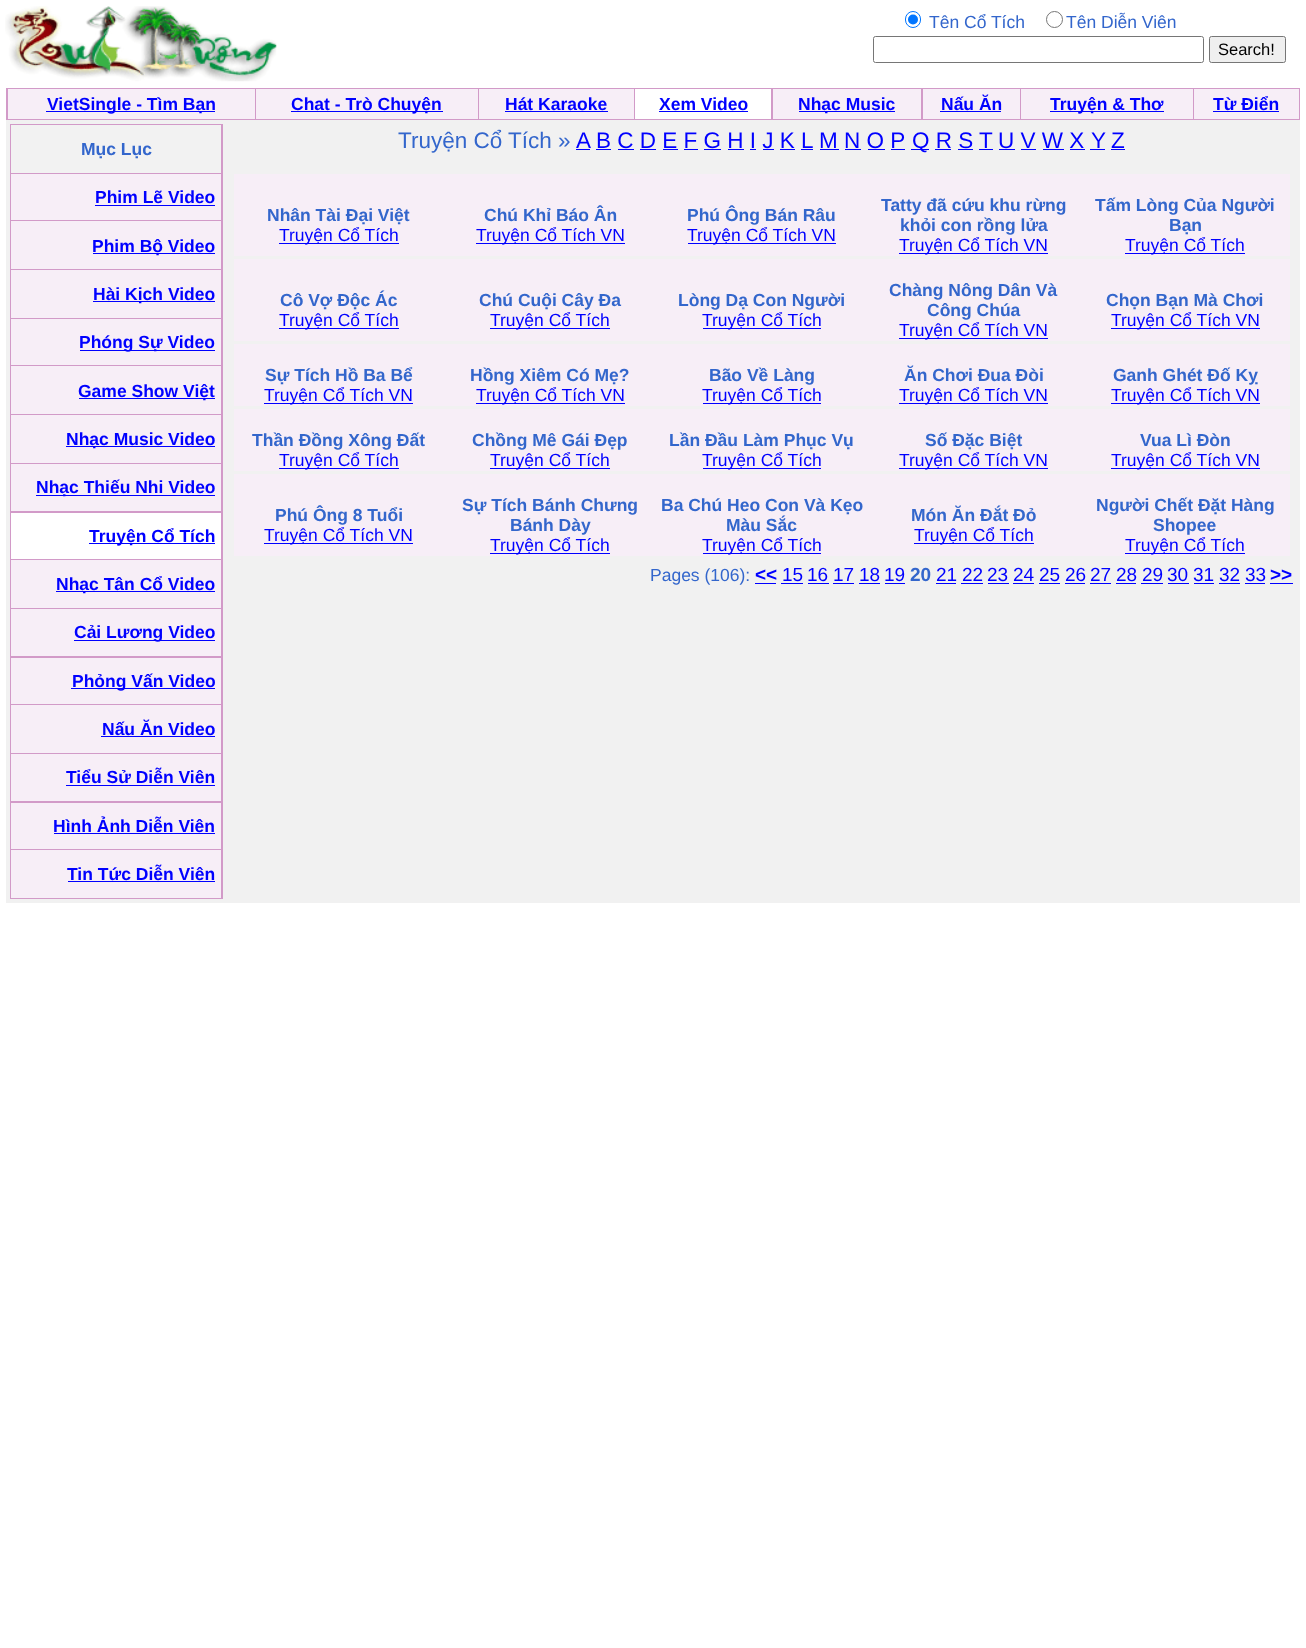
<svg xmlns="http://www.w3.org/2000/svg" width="1306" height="1648">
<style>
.a{font:17.5px Liberation Sans;fill:#36c}
.b{font:16.5px Liberation Sans;fill:#000}
.c{font:bold 17.5px Liberation Sans;fill:#00f}
.d{font:bold 17.5px Liberation Sans;fill:#36c}
.e{font:22.5px Liberation Sans;fill:#36c}
.f{font:22.5px Liberation Sans;fill:#00f}
.g{font:17.5px Liberation Sans;fill:#00f}
.h{font:bold 19px Liberation Sans;fill:#00f}
.i{font:19px Liberation Sans;fill:#00f}
.j{font:bold 19px Liberation Sans;fill:#36c}
</style>
<rect width="100%" height="100%" fill="#fff"/>
<image href="1.png" x="5" y="6" width="272" height="76"/>
<rect fill="none" stroke="#0075ff" x="905.5" y="11.5" width="15" height="16" rx="7.5"/>
<circle fill="#0075ff" cx="913" cy="19.5" r="5"/>
<circle fill="none" stroke="#767676" cx="1054.5" cy="19.5" r="8"/>
<rect fill="none" stroke="#767676" x="873.5" y="36.5" width="330" height="26" rx="2"/>
<rect fill="#efefef" stroke="#767676" x="1209.5" y="36.5" width="76" height="26" rx="2"/>
<path fill="#d29ac8" d="M6 88h1294v32H6z"/>
<path fill="#f7eef7" d="M8 89h247v30H8z"/>
<path fill="#00f" d="M46 111h169v1H46z"/>
<path fill="#f7eef7" d="M256 89h222v30H256z"/>
<path fill="#00f" d="M291 111h152v1H291z"/>
<path fill="#f7eef7" d="M479 89h155v30H479z"/>
<path fill="#00f" d="M505 111h103v1H505z"/>
<path fill="#fff" d="M635 89h136v30H635z"/>
<path fill="#00f" d="M659 111h89v1H659z"/>
<path fill="#f7eef7" d="M773 89h148v30H773z"/>
<path fill="#00f" d="M799 111h96v1H799z"/>
<path fill="#f7eef7" d="M923 89h97v30H923z"/>
<path fill="#00f" d="M940 111h61v1H940z"/>
<path fill="#f7eef7" d="M1021 89h172v30H1021z"/>
<path fill="#00f" d="M1050 111h114v1H1050z"/>
<path fill="#f7eef7" d="M1194 89h105v30H1194z"/>
<path fill="#00f" d="M1213 111h66v1H1213z"/>
<path fill="#f1f1f1" d="M6 120h1294v783H6z"/>
<path fill="#d29ac8" d="M10 124h213v775H10z"/>
<path fill="#f2f2f2" d="M11 125h210v48H11z"/>
<path fill="#f7eef7" d="M11 174h210v46H11z"/>
<path fill="#00f" d="M95 205h120v1H95z"/>
<path fill="#f7eef7" d="M11 221h210v48H11z"/>
<path fill="#00f" d="M93 253h122v1H93z"/>
<path fill="#f7eef7" d="M11 270h210v48H11z"/>
<path fill="#00f" d="M93 301h122v1H93z"/>
<path fill="#f7eef7" d="M11 319h210v46H11z"/>
<path fill="#00f" d="M80 350h135v1H80z"/>
<path fill="#f7eef7" d="M11 366h210v48H11z"/>
<path fill="#00f" d="M79 398h136v1H79z"/>
<path fill="#f7eef7" d="M11 415h210v48H11z"/>
<path fill="#00f" d="M66 446h149v1H66z"/>
<path fill="#f7eef7" d="M11 464h210v47H11z"/>
<path fill="#00f" d="M36 495h179v1H36z"/>
<path fill="#fff" d="M11 513h210v46H11z"/>
<path fill="#00f" d="M89 543h126v1H89z"/>
<path fill="#f7eef7" d="M11 560h210v48H11z"/>
<path fill="#00f" d="M56 591h159v1H56z"/>
<path fill="#f7eef7" d="M11 609h210v47H11z"/>
<path fill="#00f" d="M74 640h141v1H74z"/>
<path fill="#f7eef7" d="M11 658h210v46H11z"/>
<path fill="#00f" d="M71 688h144v1H71z"/>
<path fill="#f7eef7" d="M11 705h210v48H11z"/>
<path fill="#00f" d="M101 736h114v1H101z"/>
<path fill="#f7eef7" d="M11 754h210v47H11z"/>
<path fill="#00f" d="M66 785h149v1H66z"/>
<path fill="#f7eef7" d="M11 803h210v46H11z"/>
<path fill="#00f" d="M54 833h161v1H54z"/>
<path fill="#f7eef7" d="M11 850h210v48H11z"/>
<path fill="#00f" d="M68 881h147v1H68z"/>
<path fill="#00f" d="M576 149h14v1H576z"/>
<path fill="#00f" d="M596 149h15v1H596z"/>
<path fill="#00f" d="M820 149h19v1H820z"/>
<path fill="#00f" d="M911 149h18v1H911z"/>
<path fill="#00f" d="M979 149h14v1H979z"/>
<path fill="#00f" d="M999 149h16v1H999z"/>
<path fill="#00f" d="M1090 149h15v1H1090z"/>
<path fill="#00f" d="M1111 149h14v1H1111z"/>
<path fill="#00f" d="M618 149h16v1H618z"/>
<path fill="#00f" d="M640 149h16v1H640z"/>
<path fill="#00f" d="M663 149h15v1H663z"/>
<path fill="#00f" d="M684 149h14v1H684z"/>
<path fill="#00f" d="M704 149h17v1H704z"/>
<path fill="#00f" d="M728 149h16v1H728z"/>
<path fill="#00f" d="M750 149h6v1H750z"/>
<path fill="#00f" d="M763 149h11v1H763z"/>
<path fill="#00f" d="M780 149h15v1H780z"/>
<path fill="#00f" d="M801 149h12v1H801z"/>
<path fill="#00f" d="M845 149h16v1H845z"/>
<path fill="#00f" d="M868 149h17v1H868z"/>
<path fill="#00f" d="M891 149h14v1H891z"/>
<path fill="#00f" d="M935 149h16v1H935z"/>
<path fill="#00f" d="M958 149h15v1H958z"/>
<path fill="#00f" d="M1021 149h15v1H1021z"/>
<path fill="#00f" d="M1043 149h21v1H1043z"/>
<path fill="#00f" d="M1070 149h15v1H1070z"/>
<path fill="#f7eef7" d="M234 174h1056v82H234z"/>
<path fill="#00f" d="M279 243h120v1H279z"/>
<path fill="#00f" d="M476 243h149v1H476z"/>
<path fill="#00f" d="M688 243h148v1H688z"/>
<path fill="#00f" d="M899 253h149v1H899z"/>
<path fill="#00f" d="M1125 253h120v1H1125z"/>
<path fill="#f7eef7" d="M234 259h1056v82H234z"/>
<path fill="#00f" d="M279 328h120v1H279z"/>
<path fill="#00f" d="M490 328h120v1H490z"/>
<path fill="#00f" d="M703 328h118v1H703z"/>
<path fill="#00f" d="M899 338h149v1H899z"/>
<path fill="#00f" d="M1111 328h149v1H1111z"/>
<path fill="#f7eef7" d="M234 344h1056v62H234z"/>
<path fill="#00f" d="M264 403h149v1H264z"/>
<path fill="#00f" d="M476 403h149v1H476z"/>
<path fill="#00f" d="M703 403h118v1H703z"/>
<path fill="#00f" d="M899 403h149v1H899z"/>
<path fill="#00f" d="M1111 403h149v1H1111z"/>
<path fill="#f7eef7" d="M234 409h1056v62H234z"/>
<path fill="#00f" d="M279 468h120v1H279z"/>
<path fill="#00f" d="M490 468h120v1H490z"/>
<path fill="#00f" d="M703 468h118v1H703z"/>
<path fill="#00f" d="M899 468h149v1H899z"/>
<path fill="#00f" d="M1111 468h149v1H1111z"/>
<path fill="#f7eef7" d="M234 474h1056v82H234z"/>
<path fill="#00f" d="M264 543h149v1H264z"/>
<path fill="#00f" d="M490 553h120v1H490z"/>
<path fill="#00f" d="M703 553h118v1H703z"/>
<path fill="#00f" d="M914 543h120v1H914z"/>
<path fill="#00f" d="M1125 553h120v1H1125z"/>
<path fill="#00f" d="M755 583h21v1H755z"/>
<path fill="#00f" d="M781 583h22v1H781z"/>
<path fill="#00f" d="M808 583h21v1H808z"/>
<path fill="#00f" d="M833 583h21v1H833z"/>
<path fill="#00f" d="M859 583h21v1H859z"/>
<path fill="#00f" d="M885 583h20v1H885z"/>
<path fill="#00f" d="M936 583h20v1H936z"/>
<path fill="#00f" d="M961 583h22v1H961z"/>
<path fill="#00f" d="M988 583h21v1H988z"/>
<path fill="#00f" d="M1013 583h21v1H1013z"/>
<path fill="#00f" d="M1039 583h21v1H1039z"/>
<path fill="#00f" d="M1065 583h20v1H1065z"/>
<path fill="#00f" d="M1090 583h21v1H1090z"/>
<path fill="#00f" d="M1116 583h20v1H1116z"/>
<path fill="#00f" d="M1141 583h22v1H1141z"/>
<path fill="#00f" d="M1168 583h21v1H1168z"/>
<path fill="#00f" d="M1194 583h20v1H1194z"/>
<path fill="#00f" d="M1219 583h21v1H1219z"/>
<path fill="#00f" d="M1245 583h20v1H1245z"/>
<path fill="#00f" d="M1270 583h23v1H1270z"/>
<text class="a" x="929" y="28">Tên Cổ Tích</text>
<text class="a" x="1066" y="28">Tên Diễn Viên</text>
<text class="b" x="1218" y="55">Search!</text>
<text class="c" x="47" y="110">VietSingle - Tìm Bạn</text>
<text class="c" x="291" y="110">Chat - Trò Chuyện</text>
<text class="c" x="505" y="110">Hát Karaoke</text>
<text class="c" x="659" y="110">Xem Video</text>
<text class="c" x="798" y="110">Nhạc Music</text>
<text class="c" x="941" y="110">Nấu Ăn</text>
<text class="c" x="1050" y="110">Truyện &amp; Thơ</text>
<text class="c" x="1213" y="110">Từ Điển</text>
<text class="d" x="81" y="155">Mục Lục</text>
<text class="c" x="95" y="203">Phim Lẽ Video</text>
<text class="c" x="92" y="252">Phim Bộ Video</text>
<text class="c" x="93" y="300">Hài Kịch Video</text>
<text class="c" x="79" y="348">Phóng Sự Video</text>
<text class="c" x="78" y="397">Game Show Việt</text>
<text class="c" x="66" y="445">Nhạc Music Video</text>
<text class="c" x="36" y="493">Nhạc Thiếu Nhi Video</text>
<text class="c" x="89" y="542">Truyện Cổ Tích</text>
<text class="c" x="56" y="590">Nhạc Tân Cổ Video</text>
<text class="c" x="74" y="638">Cải Lương Video</text>
<text class="c" x="72" y="687">Phỏng Vấn Video</text>
<text class="c" x="102" y="735">Nấu Ăn Video</text>
<text class="c" x="66" y="783">Tiểu Sử Diễn Viên</text>
<text class="c" x="53" y="832">Hình Ảnh Diễn Viên</text>
<text class="c" x="67" y="880">Tin Tức Diễn Viên</text>
<text class="e" x="398" y="148">Truyện Cổ Tích »</text>
<text class="f" x="576" y="148">A</text>
<text class="f" x="596" y="148">B C D E F G H I J K L</text>
<text class="f" x="819" y="148">M N O P</text>
<text class="f" x="912" y="148">Q R S</text>
<text class="f" x="979" y="148">T</text>
<text class="f" x="998" y="148">U V W X</text>
<text class="f" x="1091" y="148">Y</text>
<text class="f" x="1111" y="148">Z</text>
<text class="d" x="267" y="221">Nhân Tài Đại Việt</text>
<text class="g" x="279" y="241">Truyện Cổ Tích</text>
<text class="d" x="484" y="221">Chú Khỉ Báo Ân</text>
<text class="g" x="476" y="241">Truyện Cổ Tích VN</text>
<text class="d" x="687" y="221">Phú Ông Bán Râu</text>
<text class="g" x="687" y="241">Truyện Cổ Tích VN</text>
<text class="d" x="881" y="211">Tatty đã cứu khu rừng</text>
<text class="d" x="900" y="231">khỏi con rồng lửa</text>
<text class="g" x="899" y="251">Truyện Cổ Tích VN</text>
<text class="d" x="1095" y="211">Tấm Lòng Của Người</text>
<text class="d" x="1169" y="231">Bạn</text>
<text class="g" x="1125" y="251">Truyện Cổ Tích</text>
<text class="d" x="280" y="306">Cô Vợ Độc Ác</text>
<text class="g" x="279" y="326">Truyện Cổ Tích</text>
<text class="d" x="479" y="306">Chú Cuội Cây Đa</text>
<text class="g" x="490" y="326">Truyện Cổ Tích</text>
<text class="d" x="678" y="306">Lòng Dạ Con Người</text>
<text class="g" x="702" y="326">Truyện Cổ Tích</text>
<text class="d" x="889" y="296">Chàng Nông Dân Và</text>
<text class="d" x="927" y="316">Công Chúa</text>
<text class="g" x="899" y="336">Truyện Cổ Tích VN</text>
<text class="d" x="1106" y="306">Chọn Bạn Mà Chơi</text>
<text class="g" x="1111" y="326">Truyện Cổ Tích VN</text>
<text class="d" x="265" y="381">Sự Tích Hồ Ba Bể</text>
<text class="g" x="264" y="401">Truyện Cổ Tích VN</text>
<text class="d" x="470" y="381">Hồng Xiêm Có Mẹ?</text>
<text class="g" x="476" y="401">Truyện Cổ Tích VN</text>
<text class="d" x="709" y="381">Bão Về Làng</text>
<text class="g" x="702" y="401">Truyện Cổ Tích</text>
<text class="d" x="904" y="381">Ăn Chơi Đua Đòi</text>
<text class="g" x="899" y="401">Truyện Cổ Tích VN</text>
<text class="d" x="1113" y="381">Ganh Ghét Đố Kỵ</text>
<text class="g" x="1111" y="401">Truyện Cổ Tích VN</text>
<text class="d" x="252" y="446">Thần Đồng Xông Đất</text>
<text class="g" x="279" y="466">Truyện Cổ Tích</text>
<text class="d" x="472" y="446">Chồng Mê Gái Đẹp</text>
<text class="g" x="490" y="466">Truyện Cổ Tích</text>
<text class="d" x="669" y="446">Lần Đầu Làm Phục Vụ</text>
<text class="g" x="702" y="466">Truyện Cổ Tích</text>
<text class="d" x="925" y="446">Số Đặc Biệt</text>
<text class="g" x="899" y="466">Truyện Cổ Tích VN</text>
<text class="d" x="1140" y="446">Vua Lì Đòn</text>
<text class="g" x="1111" y="466">Truyện Cổ Tích VN</text>
<text class="d" x="275" y="521">Phú Ông 8 Tuổi</text>
<text class="g" x="264" y="541">Truyện Cổ Tích VN</text>
<text class="d" x="462" y="511">Sự Tích Bánh Chưng</text>
<text class="d" x="510" y="531">Bánh Dày</text>
<text class="g" x="490" y="551">Truyện Cổ Tích</text>
<text class="d" x="661" y="511">Ba Chú Heo Con Và Kẹo</text>
<text class="d" x="726" y="531">Màu Sắc</text>
<text class="g" x="702" y="551">Truyện Cổ Tích</text>
<text class="d" x="911" y="521">Món Ăn Đắt Đỏ</text>
<text class="g" x="914" y="541">Truyện Cổ Tích</text>
<text class="d" x="1096" y="511">Người Chết Đặt Hàng</text>
<text class="d" x="1153" y="531">Shopee</text>
<text class="g" x="1125" y="551">Truyện Cổ Tích</text>
<text class="a" x="650" y="581">Pages (106):</text>
<text class="h" x="755" y="581">&lt;&lt;</text>
<text class="i" x="782" y="581">15</text>
<text class="i" x="807" y="581">16</text>
<text class="i" x="833" y="581">17</text>
<text class="i" x="859" y="581">18</text>
<text class="i" x="884" y="581">19</text>
<text class="j" x="910" y="581">20</text>
<text class="i" x="936" y="581">21</text>
<text class="i" x="962" y="581">22</text>
<text class="i" x="987" y="581">23</text>
<text class="i" x="1013" y="581">24</text>
<text class="i" x="1039" y="581">25</text>
<text class="i" x="1065" y="581">26</text>
<text class="i" x="1090" y="581">27</text>
<text class="i" x="1116" y="581">28</text>
<text class="i" x="1142" y="581">29</text>
<text class="i" x="1167" y="581">30</text>
<text class="i" x="1193" y="581">31</text>
<text class="i" x="1219" y="581">32</text>
<text class="i" x="1245" y="581">33</text>
<text class="h" x="1270" y="581">&gt;&gt;</text>
</svg>
